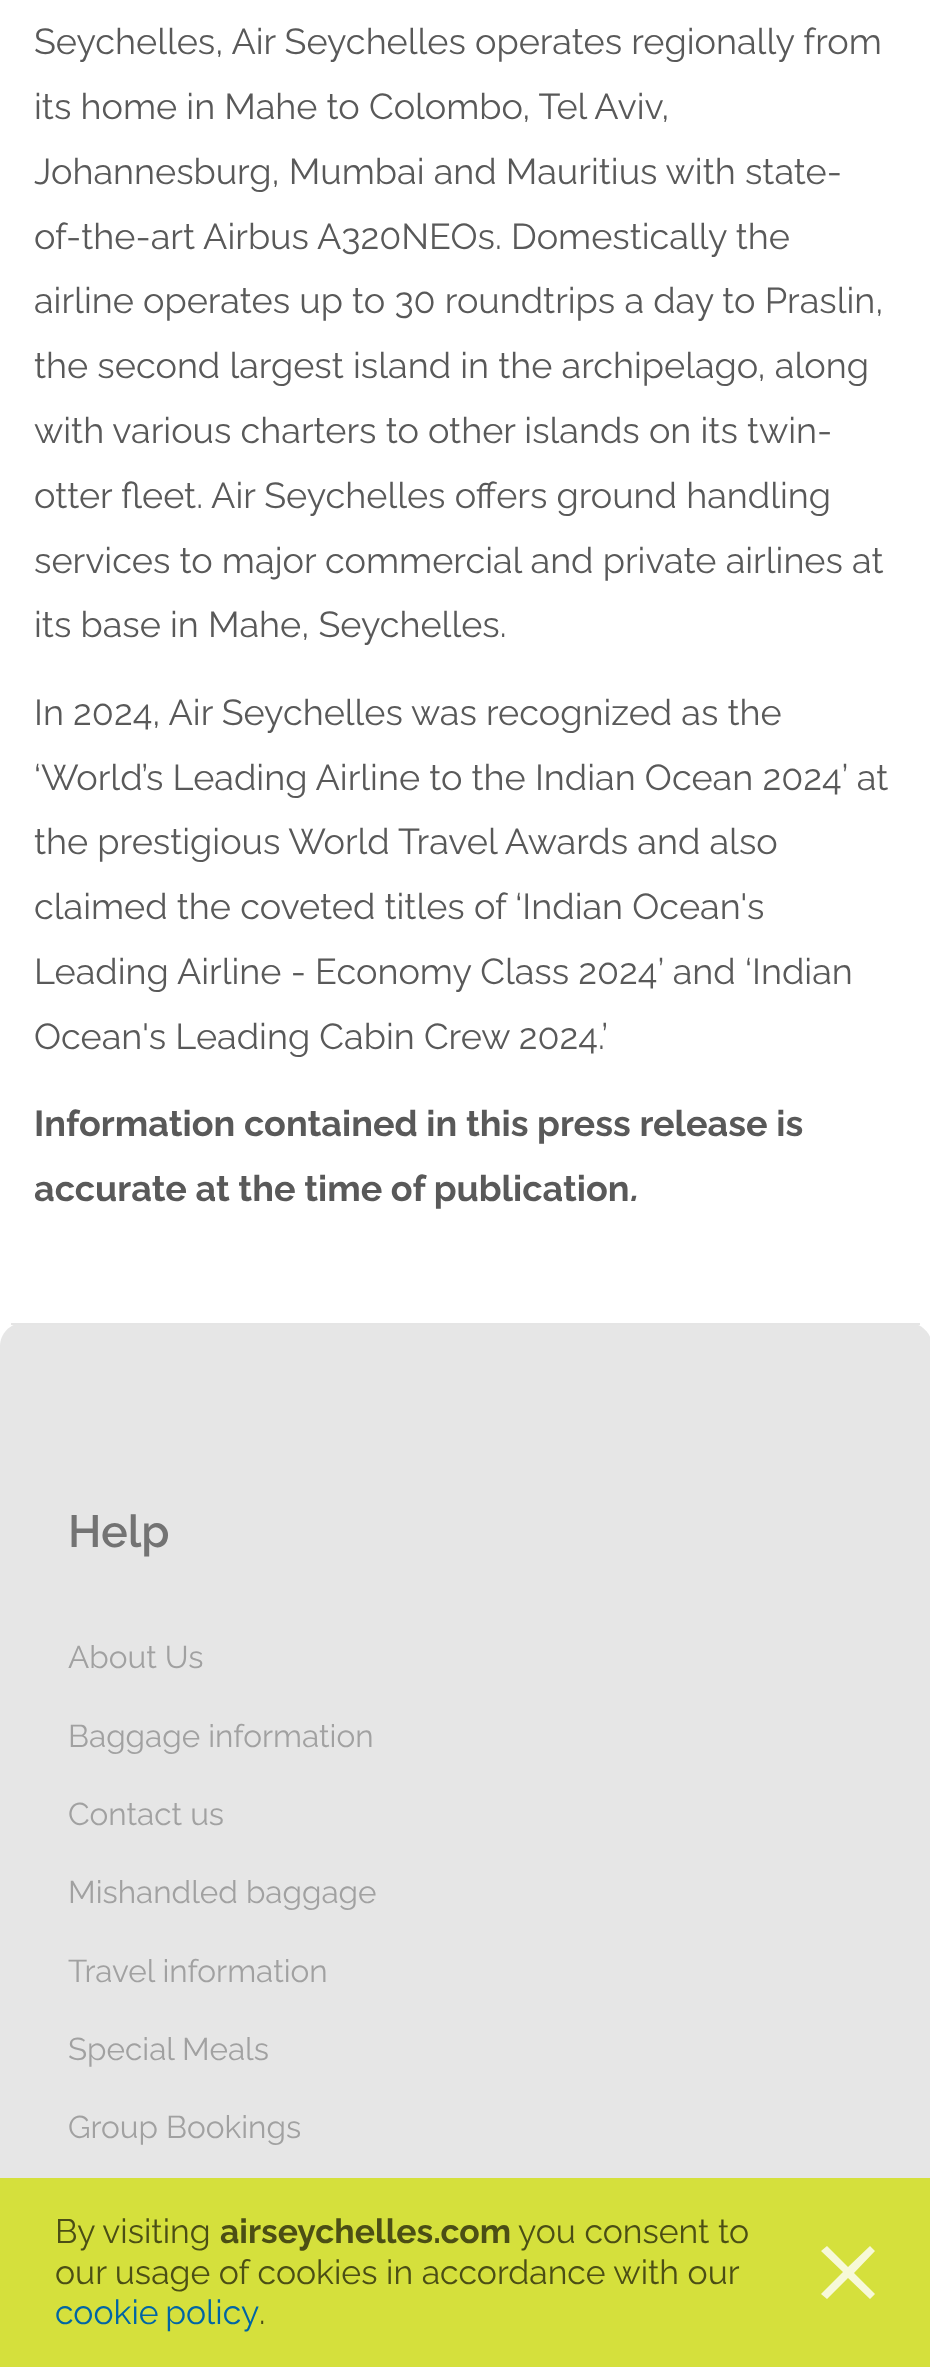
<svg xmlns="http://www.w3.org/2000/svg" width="930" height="2367">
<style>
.a{font:36px Raleway;fill:#595959}
.b{font:bold 36px Raleway;fill:#595959}
.c{font:italic bold 36px Raleway;fill:#595959}
.d{font:600 45px Raleway;fill:#737373}
.e{font:31.5px Raleway;fill:#a1a1a1}
.f{font:33.75px Raleway;fill:#4b4e15}
.g{font:bold 33.75px Raleway;fill:#4b4e15}
.h{font:33.75px Raleway;fill:#0065a4}
</style>
<rect width="100%" height="100%" fill="#fff"/>
<path fill="#e6e6e6" d="M23 1323h886c12.5 0 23 10.5 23 23v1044h-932v-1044c0-12.5 10.5-23 23-23z"/>
<path fill="#e5e5e5" d="M11 1323h909v2H11z"/>
<path fill="#d5e03c" d="M0 2178h930v189H0z"/>
<path fill="#f7f9d8" d="M875 2251l-5-5l-22 21l-21-21l-6 5l22 21l-22 22l6 5l21-21l22 21l5-5l-21-21z"/>
<text class="a" x="34" y="54">Seychelles, Air Seychelles operates regionally from</text>
<text class="a" x="34" y="119">its home in Mahe to Colombo, Tel Aviv,</text>
<text class="a" x="34" y="184">Johannesburg, Mumbai and Mauritius with state-</text>
<text class="a" x="34" y="249">of-the-art Airbus A320NEOs. Domestically the</text>
<text class="a" x="34" y="313">airline operates up to 30 roundtrips a day to Praslin,</text>
<text class="a" x="34" y="378">the second largest island in the archipelago, along</text>
<text class="a" x="34" y="443">with various charters to other islands on its twin-</text>
<text class="a" x="34" y="508">otter fleet. Air Seychelles offers ground handling</text>
<text class="a" x="34" y="573">services to major commercial and private airlines at</text>
<text class="a" x="34" y="637">its base in Mahe, Seychelles.</text>
<text class="a" x="34" y="725">In 2024, Air Seychelles was recognized as the</text>
<text class="a" x="34" y="790">‘World’s Leading Airline to the Indian Ocean 2024’ at</text>
<text class="a" x="34" y="854">the prestigious World Travel Awards and also</text>
<text class="a" x="34" y="919">claimed the coveted titles of ‘Indian Ocean's</text>
<text class="a" x="34" y="984">Leading Airline - Economy Class 2024’ and ‘Indian</text>
<text class="a" x="34" y="1049">Ocean's Leading Cabin Crew 2024.’</text>
<text class="b" x="34" y="1136">Information contained in this press release is</text>
<text class="b" x="34" y="1201">accurate at the time of publication</text>
<text class="c" x="629" y="1201">.</text>
<text class="d" x="68" y="1547">Help</text>
<text class="e" x="68" y="1668">About Us</text>
<text class="e" x="68" y="1747">Baggage information</text>
<text class="e" x="68" y="1825">Contact us</text>
<text class="e" x="68" y="1903">Mishandled baggage</text>
<text class="e" x="68" y="1982">Travel information</text>
<text class="e" x="68" y="2060">Special Meals</text>
<text class="e" x="68" y="2138">Group Bookings</text>
<text class="f" x="55" y="2243">By visiting</text>
<text class="g" x="220" y="2243">airseychelles.com</text>
<text class="f" x="518" y="2243">you consent to</text>
<text class="f" x="55" y="2284">our usage of cookies in accordance with our</text>
<text class="h" x="55" y="2324" word-spacing="-2">cookie policy</text>
<text class="f" x="259" y="2324">.</text>
</svg>
